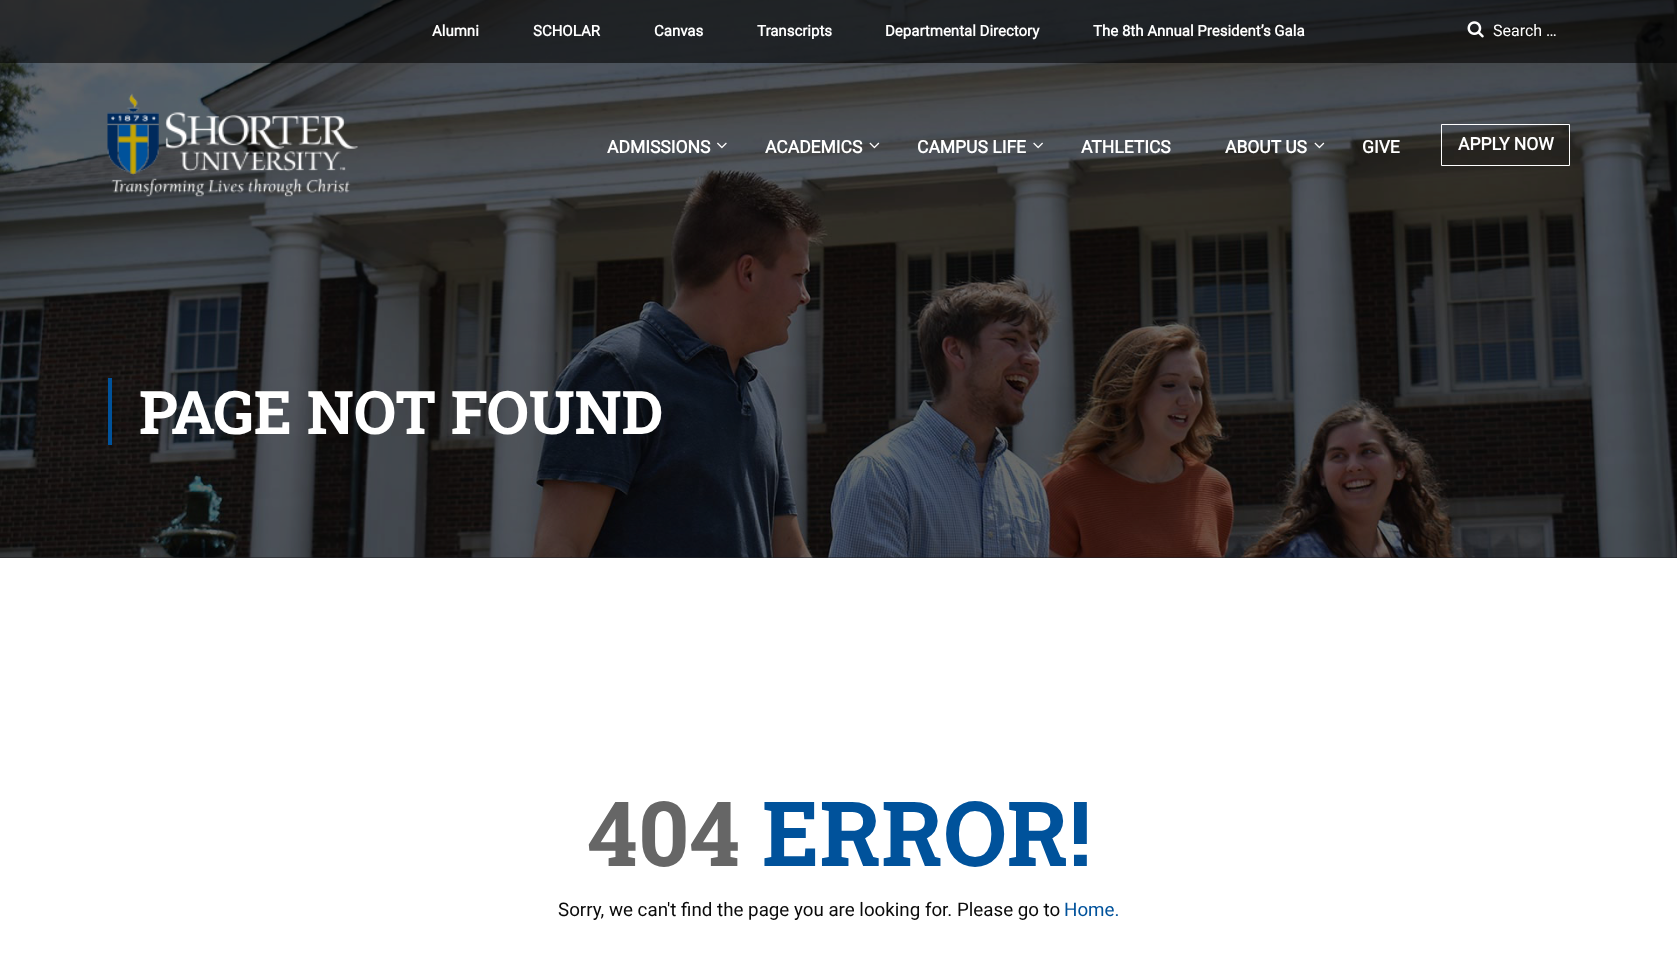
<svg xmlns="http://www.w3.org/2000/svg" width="1677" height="965">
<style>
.a{font:bold 15px Roboto;fill:#fff}
.b{font:16px Roboto;fill:#fff}
.c{font:bold 17.5px Roboto;fill:#fff}
.d{font:bold 60px Roboto Slab;fill:#fff}
.e{font:bold 90px Roboto Slab;fill:#666}
.f{font:bold 90px Roboto Slab;fill:#00529b}
.g{font:18.75px Roboto;fill:#0a0a0a}
.h{font:18.75px Roboto;fill:#00529b}
</style>
<rect width="100%" height="100%" fill="#fff"/>
<path fill="#1c1f22" d="M0 557h1677v1H0z"/>
<image href="7.png" x="0" y="0" width="1677" height="558"/>
<path fill="#0000008f" d="M0 0h1677v63H0z"/>
<image href="1.png" x="1467" y="21" width="17" height="17"/>
<image href="2.png" x="107" y="93" width="251" height="104"/>
<image href="3.png" x="717" y="142" width="10" height="7"/>
<image href="4.png" x="869" y="142" width="11" height="7"/>
<image href="5.png" x="1033" y="142" width="10" height="7"/>
<image href="6.png" x="1314" y="142" width="11" height="7"/>
<path fill="none" stroke="#fff" d="M1441.5 124.5h128v41H1441.5z"/>
<path fill="#00529b" d="M108 378h4v67H108z"/>
<text class="a" x="432" y="36">Alumni</text>
<text class="a" x="533" y="36">SCHOLAR</text>
<text class="a" x="654" y="36">Canvas</text>
<text class="a" x="757" y="36">Transcripts</text>
<text class="a" x="885" y="36">Departmental Directory</text>
<text class="a" x="1093" y="36">The 8th Annual President’s Gala</text>
<text class="b" x="1493" y="36">Search …</text>
<text class="c" x="607" y="153">ADMISSIONS</text>
<text class="c" x="765" y="153">ACADEMICS</text>
<text class="c" x="917" y="153">CAMPUS LIFE</text>
<text class="c" x="1081" y="153">ATHLETICS</text>
<text class="c" x="1225" y="153">ABOUT US</text>
<text class="c" x="1362" y="153">GIVE</text>
<text class="c" x="1458" y="150">APPLY NOW</text>
<text class="d" x="139" y="434">PAGE NOT FOUND</text>
<text class="e" x="587" y="866">404</text>
<text class="f" x="762" y="866">ERROR!</text>
<text class="g" x="558" y="916">Sorry, we can't find the page you are looking for. Please go to</text>
<text class="h" x="1064" y="916">Home.</text>
</svg>
